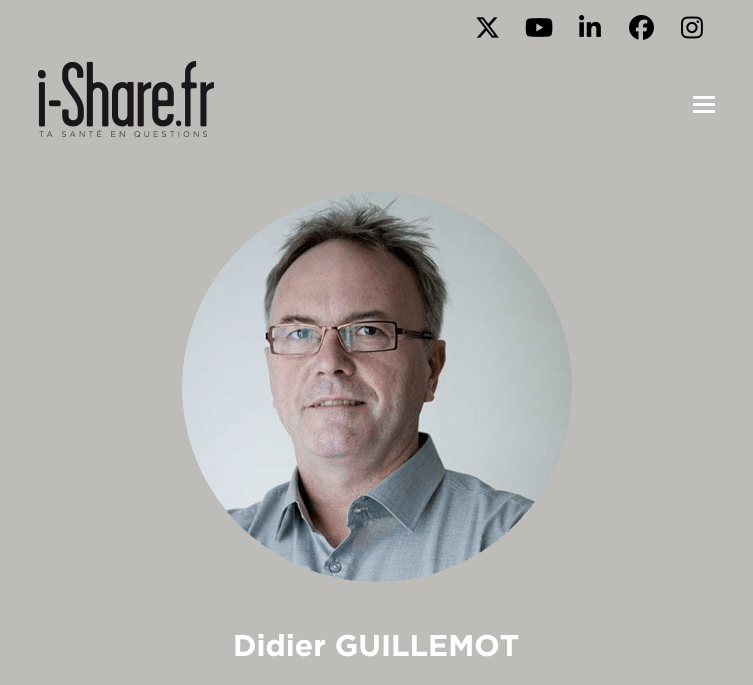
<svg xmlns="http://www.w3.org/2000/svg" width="753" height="685">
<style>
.a{font:bold 30px Gotham;fill:#fff}
</style>
<rect width="100%" height="100%" fill="#bdbcb9"/>
<image href="1.png" x="476" y="17" width="23" height="21"/>
<image href="2.png" x="525" y="18" width="28" height="19"/>
<image href="3.png" x="579" y="15" width="22" height="22"/>
<image href="4.png" x="629" y="15" width="25" height="25"/>
<image href="5.png" x="681" y="16" width="22" height="23"/>
<image href="6.png" x="38" y="61" width="176" height="76"/>
<path fill="#fff" d="M693 103h22v3H693z"/>
<path fill="#fff" d="M693 96h22v3H693z"/>
<path fill="#fff" d="M693 110h22v3H693z"/>
<image href="7.png" x="182" y="192" width="390" height="390"/>
<text class="a" x="233" y="656">Didier GUILLEMOT</text>
</svg>
